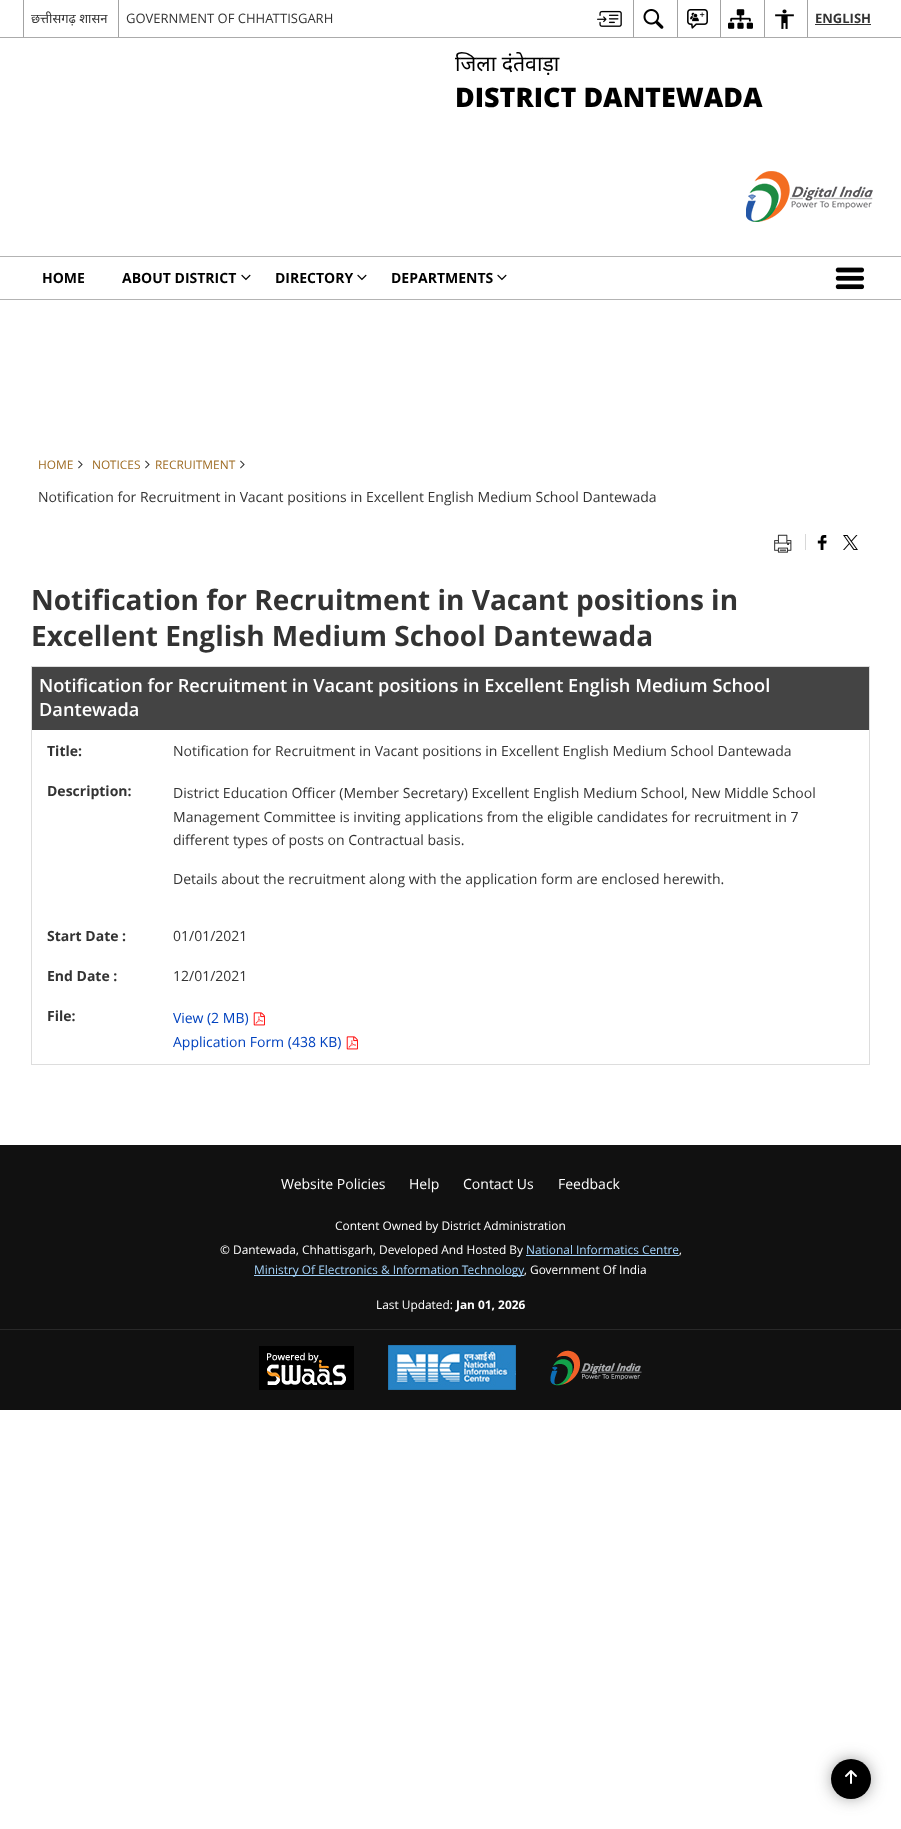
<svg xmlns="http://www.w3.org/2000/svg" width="901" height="1829">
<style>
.a{font:13px Noto Sans;fill:#333}
.b{font:13px Open Sans;fill:#333}
.c{font:bold 13px Open Sans;fill:#333}
.d{font:21.25px Noto Sans;fill:#000}
.e{font:800 26.9px Open Sans;fill:#000}
.f{font:bold 14px Open Sans;fill:#000}
.g{font:11.9px Open Sans;fill:#9e6b22}
.h{font:14px Open Sans;fill:#333}
.i{font:bold 28px Open Sans;fill:#333}
.j{font:600 18.2px Open Sans;fill:#fff}
.k{font:bold 14px Open Sans;fill:#333}
.l{font:14px Open Sans;fill:#0042bf}
.m{font:14px Open Sans;fill:#fff}
.n{font:11.9px Open Sans;fill:#fff}
.o{font:11.9px Open Sans;fill:#a3d2f9}
.p{font:bold 11.9px Open Sans;fill:#fff}
</style>
<rect width="100%" height="100%" fill="#fff"/>
<path fill="#ababab" d="M0 37h901v1H0z"/>
<path fill="#a3a3a3" d="M23 0h1v37H23z"/>
<path fill="#a3a3a3" d="M118 0h1v37H118z"/>
<image href="1.png" x="597" y="10" width="25" height="17"/>
<path fill="#a3a3a3" d="M633 0h1v37H633z"/>
<image href="2.png" x="643" y="9" width="21" height="20"/>
<path fill="#a3a3a3" d="M677 0h1v37H677z"/>
<image href="3.png" x="687" y="9" width="21" height="20"/>
<path fill="#a3a3a3" d="M720 0h1v37H720z"/>
<image href="4.png" x="728" y="9" width="25" height="20"/>
<path fill="#a3a3a3" d="M764 0h1v37H764z"/>
<image href="5.png" x="775" y="9" width="19" height="20"/>
<path fill="#a3a3a3" d="M807 0h1v37H807z"/>
<path fill="#333" d="M815 24h56v1H815z"/>
<image href="6.png" x="746" y="171" width="127" height="51"/>
<path fill="#b3b3b3" d="M0 256h901v1H0z"/>
<path fill="#b3b3b3" d="M0 299h901v1H0z"/>
<image href="7.png" x="241" y="274" width="10" height="7"/>
<image href="7.png" x="357" y="274" width="10" height="7"/>
<image href="7.png" x="497" y="274" width="10" height="7"/>
<image href="8.png" x="835" y="267" width="30" height="23"/>
<image href="9.png" x="78" y="460" width="5" height="9"/>
<image href="9.png" x="145" y="460" width="5" height="9"/>
<image href="9.png" x="240" y="460" width="5" height="9"/>
<image href="10.png" x="774" y="534" width="18" height="19"/>
<path fill="#d8d8d8" d="M805 534h1v16H805z"/>
<image href="11.png" x="817" y="535" width="10" height="15"/>
<image href="12.png" x="843" y="535" width="15" height="15"/>
<path fill="#ddd" d="M31 666h839v1H31z"/>
<path fill="#ddd" d="M869 666h1v399H869z"/>
<path fill="#ddd" d="M31 1064h839v1H31z"/>
<path fill="#ddd" d="M31 666h1v399H31z"/>
<path fill="#444" d="M32 667h837v63H32z"/>
<image href="13.png" x="253" y="1012" width="12" height="14"/>
<image href="13.png" x="346" y="1036" width="12" height="14"/>
<path fill="#111" d="M0 1145h901v265H0z"/>
<path fill="#a3d2f9" d="M526 1255h153v1H526z"/>
<path fill="#a3d2f9" d="M254 1275h270v1H254z"/>
<path fill="#292929" d="M0 1329h901v1H0z"/>
<image href="14.png" x="259" y="1346" width="95" height="44"/>
<image href="15.png" x="388" y="1345" width="128" height="45"/>
<image href="16.png" x="550" y="1350" width="92" height="36"/>
<rect fill="#3c3c3c" filter="blur(9.5px)" x="836" y="1764" width="30" height="30" rx="15"/>
<circle fill="#000" cx="851" cy="1779" r="20"/>
<image href="17.png" x="845" y="1770" width="12" height="14"/>
<text class="a" x="31" y="23">छत्तीसगढ़ शासन</text>
<text class="b" x="126" y="23">GOVERNMENT OF CHHATTISGARH</text>
<text class="c" x="815" y="23">ENGLISH</text>
<text class="d" x="455" y="71">जिला दंतेवाड़ा</text>
<text class="e" x="455" y="107">DISTRICT DANTEWADA</text>
<text class="f" x="42" y="283">HOME</text>
<text class="f" x="122" y="283">ABOUT DISTRICT</text>
<text class="f" x="275" y="283">DIRECTORY</text>
<text class="f" x="391" y="283">DEPARTMENTS</text>
<text class="g" x="38" y="469">HOME</text>
<text class="g" x="92" y="469">NOTICES</text>
<text class="g" x="155" y="469">RECRUITMENT</text>
<text class="h" x="38" y="502">Notification for Recruitment in Vacant positions in Excellent English Medium School Dantewada</text>
<text class="i" x="31" y="610">Notification for Recruitment in Vacant positions in</text>
<text class="i" x="31" y="646">Excellent English Medium School Dantewada</text>
<text class="j" x="39" y="692">Notification for Recruitment in Vacant positions in Excellent English Medium School</text>
<text class="j" x="39" y="716">Dantewada</text>
<text class="k" x="47" y="756">Title:</text>
<text class="h" x="173" y="756">Notification for Recruitment in Vacant positions in Excellent English Medium School Dantewada</text>
<text class="k" x="47" y="796">Description:</text>
<text class="h" x="173" y="798">District Education Officer (Member Secretary) Excellent English Medium School, New Middle School</text>
<text class="h" x="173" y="822">Management Committee is inviting applications from the eligible candidates for recruitment in 7</text>
<text class="h" x="173" y="845">different types of posts on Contractual basis.</text>
<text class="h" x="173" y="884">Details about the recruitment along with the application form are enclosed herewith.</text>
<text class="k" x="47" y="941">Start Date :</text>
<text class="h" x="173" y="941">01/01/2021</text>
<text class="k" x="47" y="981">End Date :</text>
<text class="h" x="173" y="981">12/01/2021</text>
<text class="k" x="47" y="1021">File:</text>
<text class="l" x="173" y="1023">View (2 MB)</text>
<text class="l" x="173" y="1047">Application Form (438 KB)</text>
<text class="m" x="281" y="1189">Website Policies</text>
<text class="m" x="409" y="1189">Help</text>
<text class="m" x="463" y="1189">Contact Us</text>
<text class="m" x="558" y="1189">Feedback</text>
<text class="n" x="335" y="1230">Content Owned by District Administration</text>
<text class="n" x="220" y="1254">© Dantewada, Chhattisgarh, Developed And Hosted By</text>
<text class="o" x="526" y="1254">National Informatics Centre</text>
<text class="n" x="679" y="1254">,</text>
<text class="o" x="254" y="1274">Ministry Of Electronics &amp; Information Technology</text>
<text class="n" x="524" y="1274">, Government Of India</text>
<text class="n" x="376" y="1309">Last Updated:</text>
<text class="p" x="456" y="1309">Jan 01, 2026</text>
</svg>
